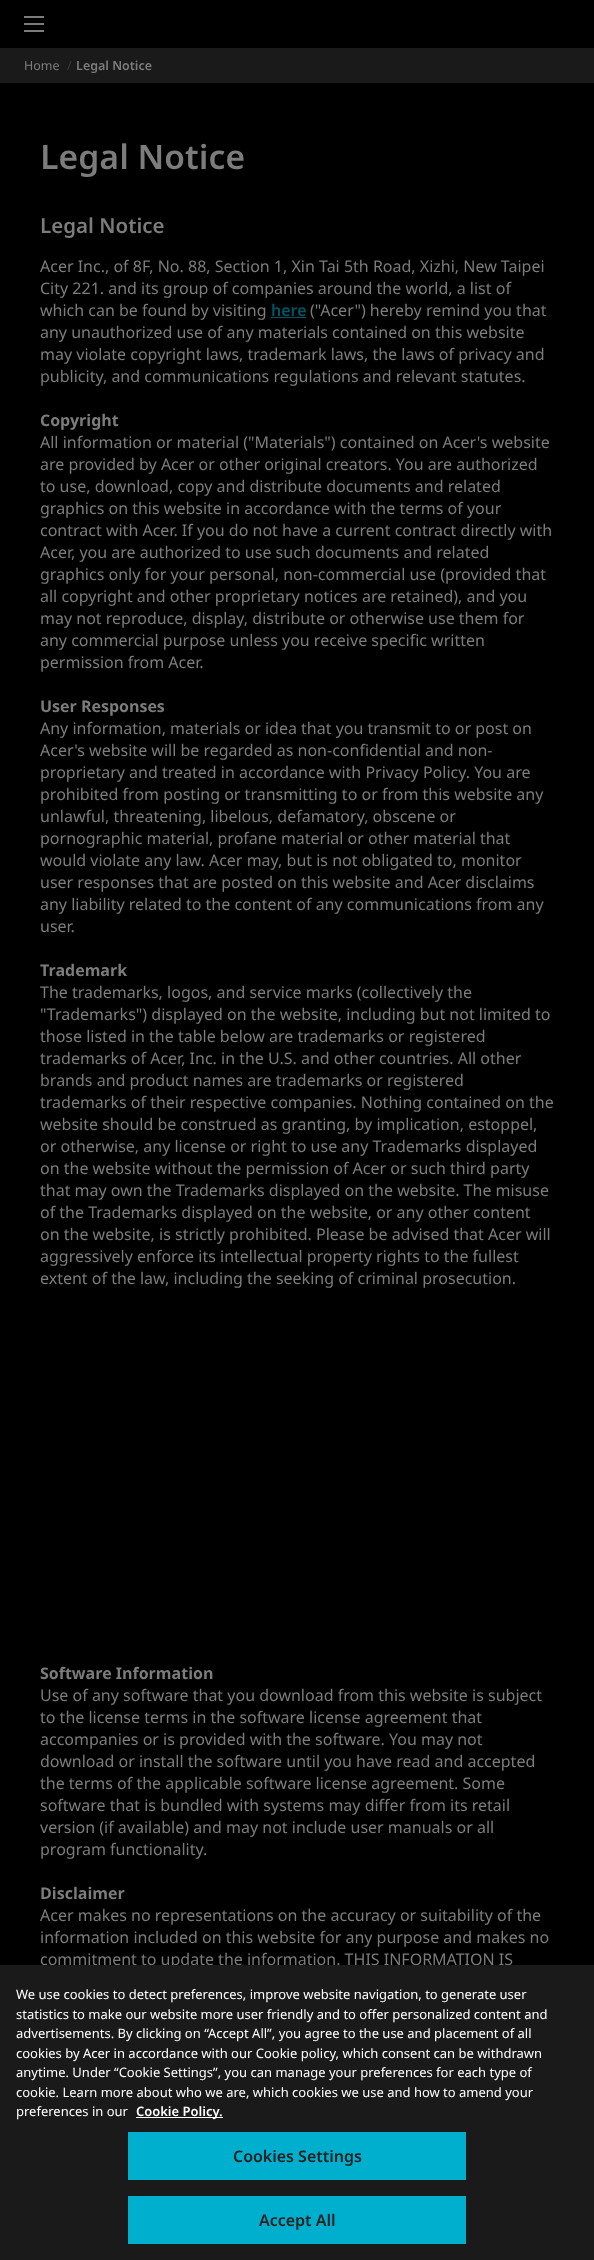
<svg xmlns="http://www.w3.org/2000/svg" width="594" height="2260">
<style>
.a{font:12.5px Noto Sans;fill:#7c7c7c}
.b{font:12.5px Noto Sans;fill:#3b3b3b}
.c{font:600 12.5px Noto Sans;fill:#7c7c7c}
.d{font:600 33.75px Noto Sans;fill:#7c7c7c}
.e{font:600 20.5px Noto Sans;fill:#7c7c7c}
.f{font:16px Noto Sans;fill:#7c7c7c}
.g{font:600 16px Noto Sans;fill:#005767}
.h{font:bold 16px Noto Sans;fill:#7c7c7c}
.i{font:13px Noto Sans;fill:#fff}
.j{font:600 13px Noto Sans;fill:#fff}
.k{font:600 16px Noto Sans;fill:#222}
</style>
<rect width="100%" height="100%" fill="#000"/>
<path fill="#7c7c7c" d="M24 16h20v2H24z"/>
<path fill="#7c7c7c" d="M24 23h20v2H24z"/>
<path fill="#7c7c7c" d="M24 30h20v2H24z"/>
<path fill="#1a1a1a" d="M0 48h594v35H0z"/>
<path fill="#005767" d="M271 317h35v1H271z"/>
<path fill="#00000033" filter="blur(9px)" d="M0 1965h594v295H0z"/>
<text class="a" x="24" y="70">Home</text>
<text class="b" x="67" y="70">/</text>
<text class="c" x="76" y="70">Legal Notice</text>
<text class="d" x="40" y="169">Legal Notice</text>
<text class="e" x="40" y="233">Legal Notice</text>
<text class="f" x="40" y="272">Acer Inc., of 8F, No. 88, Section 1, Xin Tai 5th Road, Xizhi, New Taipei</text>
<text class="f" x="40" y="294">City 221. and its group of companies around the world, a list of</text>
<text class="f" x="40" y="316">which can be found by visiting</text>
<text class="g" x="271" y="316">here</text>
<text class="f" x="310" y="316">("Acer") hereby remind you that</text>
<text class="f" x="40" y="338">any unauthorized use of any materials contained on this website</text>
<text class="f" x="40" y="360">may violate copyright laws, trademark laws, the laws of privacy and</text>
<text class="f" x="40" y="382">publicity, and communications regulations and relevant statutes.</text>
<text class="h" x="40" y="426">Copyright</text>
<text class="f" x="40" y="448">All information or material ("Materials") contained on Acer's website</text>
<text class="f" x="40" y="470">are provided by Acer or other original creators. You are authorized</text>
<text class="f" x="40" y="492">to use, download, copy and distribute documents and related</text>
<text class="f" x="40" y="514">graphics on this website in accordance with the terms of your</text>
<text class="f" x="40" y="536">contract with Acer. If you do not have a current contract directly with</text>
<text class="f" x="40" y="558">Acer, you are authorized to use such documents and related</text>
<text class="f" x="40" y="580">graphics only for your personal, non-commercial use (provided that</text>
<text class="f" x="40" y="602">all copyright and other proprietary notices are retained), and you</text>
<text class="f" x="40" y="624">may not reproduce, display, distribute or otherwise use them for</text>
<text class="f" x="40" y="646">any commercial purpose unless you receive specific written</text>
<text class="f" x="40" y="668">permission from Acer.</text>
<text class="h" x="40" y="712">User Responses</text>
<text class="f" x="40" y="734">Any information, materials or idea that you transmit to or post on</text>
<text class="f" x="40" y="756">Acer's website will be regarded as non-confidential and non-</text>
<text class="f" x="40" y="778">proprietary and treated in accordance with Privacy Policy. You are</text>
<text class="f" x="40" y="800">prohibited from posting or transmitting to or from this website any</text>
<text class="f" x="40" y="822">unlawful, threatening, libelous, defamatory, obscene or</text>
<text class="f" x="40" y="844">pornographic material, profane material or other material that</text>
<text class="f" x="40" y="866">would violate any law. Acer may, but is not obligated to, monitor</text>
<text class="f" x="40" y="888">user responses that are posted on this website and Acer disclaims</text>
<text class="f" x="40" y="910">any liability related to the content of any communications from any</text>
<text class="f" x="40" y="932">user.</text>
<text class="h" x="40" y="976">Trademark</text>
<text class="f" x="40" y="998">The trademarks, logos, and service marks (collectively the</text>
<text class="f" x="40" y="1020">"Trademarks") displayed on the website, including but not limited to</text>
<text class="f" x="40" y="1042">those listed in the table below are trademarks or registered</text>
<text class="f" x="40" y="1064">trademarks of Acer, Inc. in the U.S. and other countries. All other</text>
<text class="f" x="40" y="1086">brands and product names are trademarks or registered</text>
<text class="f" x="40" y="1108">trademarks of their respective companies. Nothing contained on the</text>
<text class="f" x="40" y="1130">website should be construed as granting, by implication, estoppel,</text>
<text class="f" x="40" y="1152">or otherwise, any license or right to use any Trademarks displayed</text>
<text class="f" x="40" y="1174">on the website without the permission of Acer or such third party</text>
<text class="f" x="40" y="1196">that may own the Trademarks displayed on the website. The misuse</text>
<text class="f" x="40" y="1218">of the Trademarks displayed on the website, or any other content</text>
<text class="f" x="40" y="1240">on the website, is strictly prohibited. Please be advised that Acer will</text>
<text class="f" x="40" y="1262">aggressively enforce its intellectual property rights to the fullest</text>
<text class="f" x="40" y="1284">extent of the law, including the seeking of criminal prosecution.</text>
<text class="h" x="40" y="1679">Software Information</text>
<text class="f" x="40" y="1701">Use of any software that you download from this website is subject</text>
<text class="f" x="40" y="1723">to the license terms in the software license agreement that</text>
<text class="f" x="40" y="1745">accompanies or is provided with the software. You may not</text>
<text class="f" x="40" y="1767">download or install the software until you have read and accepted</text>
<text class="f" x="40" y="1789">the terms of the applicable software license agreement. Some</text>
<text class="f" x="40" y="1811">software that is bundled with systems may differ from its retail</text>
<text class="f" x="40" y="1833">version (if available) and may not include user manuals or all</text>
<text class="f" x="40" y="1855">program functionality.</text>
<text class="h" x="40" y="1899">Disclaimer</text>
<text class="f" x="40" y="1921">Acer makes no representations on the accuracy or suitability of the</text>
<text class="f" x="40" y="1943">information included on this website for any purpose and makes no</text>
<text class="f" x="40" y="1965">commitment to update the information. THIS INFORMATION IS</text>
<path fill="#1a1a1a" d="M0 1965h594v295H0z"/>
<text class="i" x="16" y="1999">We use cookies to detect preferences, improve website navigation, to generate user</text>
<text class="i" x="16" y="2019">statistics to make our website more user friendly and to offer personalized content and</text>
<text class="i" x="16" y="2038">advertisements. By clicking on “Accept All”, you agree to the use and placement of all</text>
<text class="i" x="16" y="2058">cookies by Acer in accordance with our Cookie policy, which consent can be withdrawn</text>
<text class="i" x="16" y="2077">anytime. Under “Cookie Settings”, you can manage your preferences for each type of</text>
<text class="i" x="16" y="2097">cookie. Learn more about who we are, which cookies we use and how to amend your</text>
<text class="i" x="16" y="2116">preferences in our</text>
<path fill="#fff" d="M136 2117h87v1H136z"/>
<text class="j" x="136" y="2116">Cookie Policy.</text>
<path fill="#00aecd" d="M128 2132h338v48H128z"/>
<text class="k" x="233" y="2162">Cookies Settings</text>
<path fill="#00aecd" d="M128 2196h338v48H128z"/>
<text class="k" x="259" y="2226">Accept All</text>
</svg>
